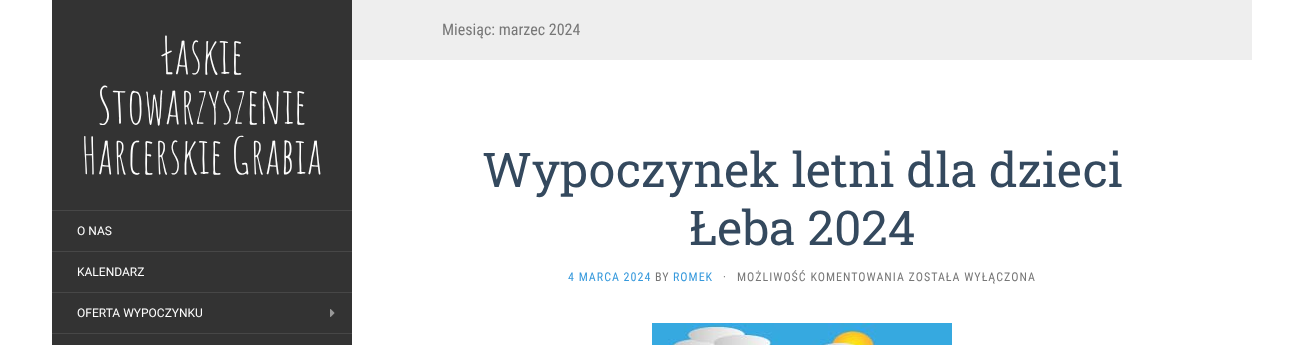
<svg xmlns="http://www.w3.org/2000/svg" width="1304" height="345">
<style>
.a{font:50px Amatic SC;fill:#fff}
.b{font:12px Roboto;fill:#fff}
.c{font:16px Roboto Condensed;fill:#777}
.d{font:48px Roboto Slab;fill:#34495e}
.e{font:12px Roboto Condensed;letter-spacing:1px;fill:#3699dc}
.f{font:12px Roboto Condensed;letter-spacing:1px;fill:#777}
</style>
<rect width="100%" height="100%" fill="#fff"/>
<path fill="#333" d="M52 0h300v345H52z"/>
<path fill="#474747" d="M52 210h300v1H52z"/>
<path fill="#474747" d="M52 251h300v1H52z"/>
<path fill="#474747" d="M52 292h300v1H52z"/>
<path fill="#474747" d="M52 333h300v1H52z"/>
<image href="1.png" x="330" y="309" width="5" height="8"/>
<path fill="#eee" d="M352 0h900v60H352z"/>
<image href="2.png" x="652" y="323" width="300" height="22"/>
<text class="a" x="161" y="74">Łaskie</text>
<text class="a" x="97" y="124">Stowarzyszenie</text>
<text class="a" x="81" y="174">Harcerskie Grabia</text>
<text class="b" x="77" y="235">O NAS</text>
<text class="b" x="77" y="276">KALENDARZ</text>
<text class="b" x="77" y="317">OFERTA WYPOCZYNKU</text>
<text class="c" x="442" y="35">Miesiąc: marzec 2024</text>
<text class="d" x="482" y="187">Wypoczynek letni dla dzieci</text>
<text class="d" x="689" y="245">Łeba 2024</text>
<text class="e" x="568" y="281">4 MARCA 2024</text>
<text class="f" x="655" y="281">BY</text>
<text class="e" x="673" y="281">ROMEK</text>
<text class="f" x="723" y="281">·</text>
<text class="f" x="737" y="281">MOŻLIWOŚĆ KOMENTOWANIA ZOSTAŁA WYŁĄCZONA</text>
</svg>
